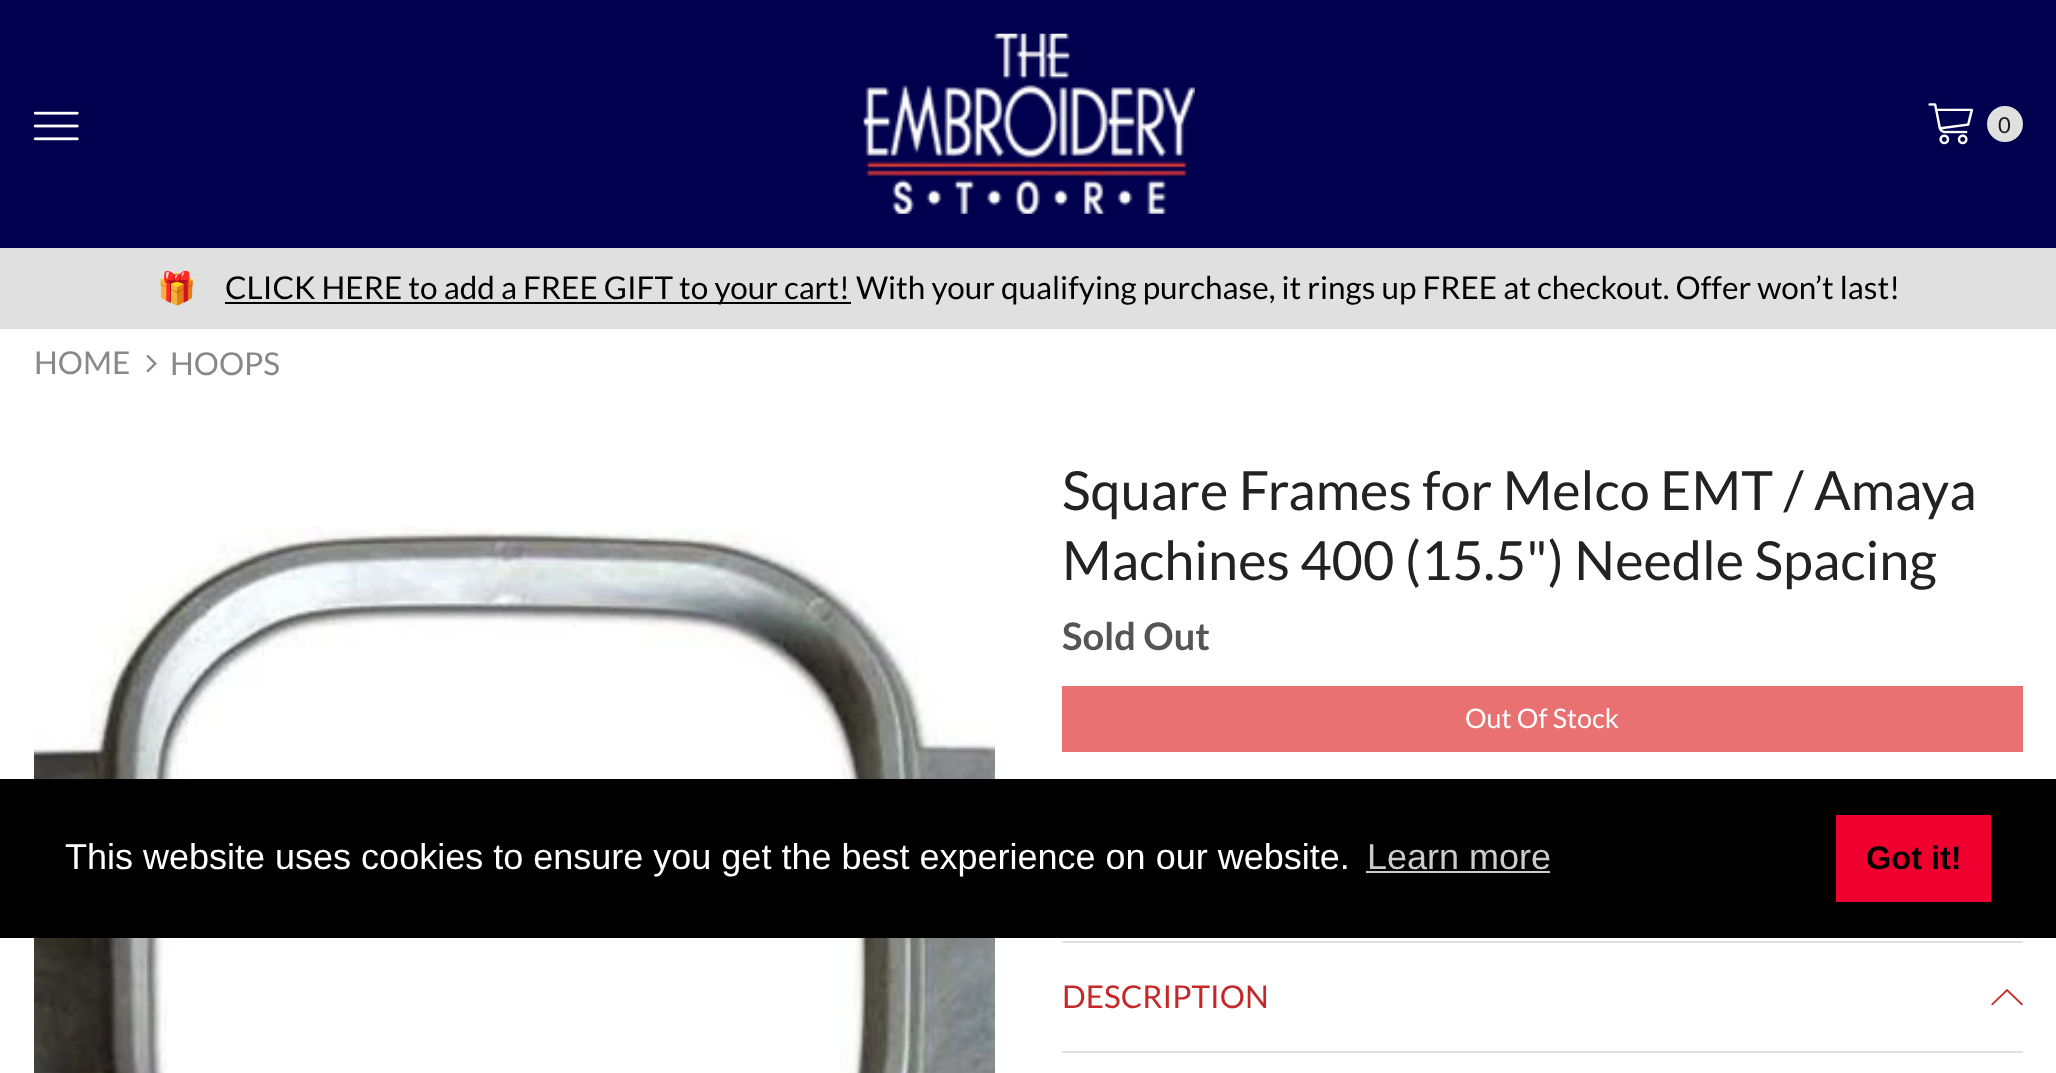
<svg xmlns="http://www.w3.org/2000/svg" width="2056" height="1073">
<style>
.a{font:22px Lato;fill:#1a1a1a}
.b{font:31.5px Noto Color Emoji;fill:#000}
.c{font:31.5px Lato;fill:#000}
.d{font:31.5px Lato;fill:#888}
.e{font:54px Lato;fill:#222}
.f{font:bold 38px Lato;fill:#555}
.g{font:27px Lato;fill:#fff}
.h{font:31.5px Lato;fill:#c62828}
.i{font:36px Liberation Sans;fill:#fff}
.j{font:36px Liberation Sans;fill:#ccc}
.k{font:bold 32.5px Liberation Sans;fill:#000}
</style>
<rect width="100%" height="100%" fill="#fff"/>
<path fill="#00004e" d="M0 0h2056v248H0z"/>
<image href="1.png" x="33" y="111" width="46" height="30"/>
<image href="2.png" x="863" y="33" width="332" height="181"/>
<image href="3.png" x="1928" y="103" width="46" height="42"/>
<circle fill="#e0e0e0" cx="2005" cy="124" r="18"/>
<path fill="#e0e0e0" d="M0 248h2056v81H0z"/>
<path fill="#000" d="M225 302h626v2H225z"/>
<image href="4.png" x="146" y="354" width="11" height="19"/>
<image href="5.png" x="34" y="526" width="961" height="547"/>
<path fill="#e97171" d="M1062 686h961v66H1062z"/>
<path fill="#e1e1e1" d="M1062 941h961v2H1062z"/>
<image href="6.png" x="1991" y="989" width="32" height="17"/>
<path fill="#e1e1e1" d="M1062 1051h961v2H1062z"/>
<path fill="#000" d="M0 779h2056v159H0z"/>
<path fill="#ccc" d="M1366 871h184v2H1366z"/>
<path fill="#f0002f" d="M1836 815h155v87H1836z"/>
<text class="a" x="1998" y="133">0</text>
<text class="b" x="157" y="299">🎁</text>
<text class="c" x="225" y="299">CLICK HERE to add a FREE GIFT to your cart! With your qualifying purchase, it rings up FREE at checkout. Offer won’t last!</text>
<text class="d" x="34" y="374">HOME</text>
<text class="d" x="170" y="375">HOOPS</text>
<text class="e" x="1062" y="510">Square Frames for Melco EMT / Amaya</text>
<text class="e" x="1062" y="580">Machines 400 (15.5") Needle Spacing</text>
<text class="f" x="1062" y="650">Sold Out</text>
<text class="g" x="1465" y="728">Out Of Stock</text>
<text class="h" x="1062" y="1008">DESCRIPTION</text>
<text class="i" x="65" y="869">This website uses cookies to ensure you get the best experience on our website.</text>
<text class="j" x="1367" y="869">Learn more</text>
<text class="k" x="1866" y="869">Got it!</text>
</svg>
